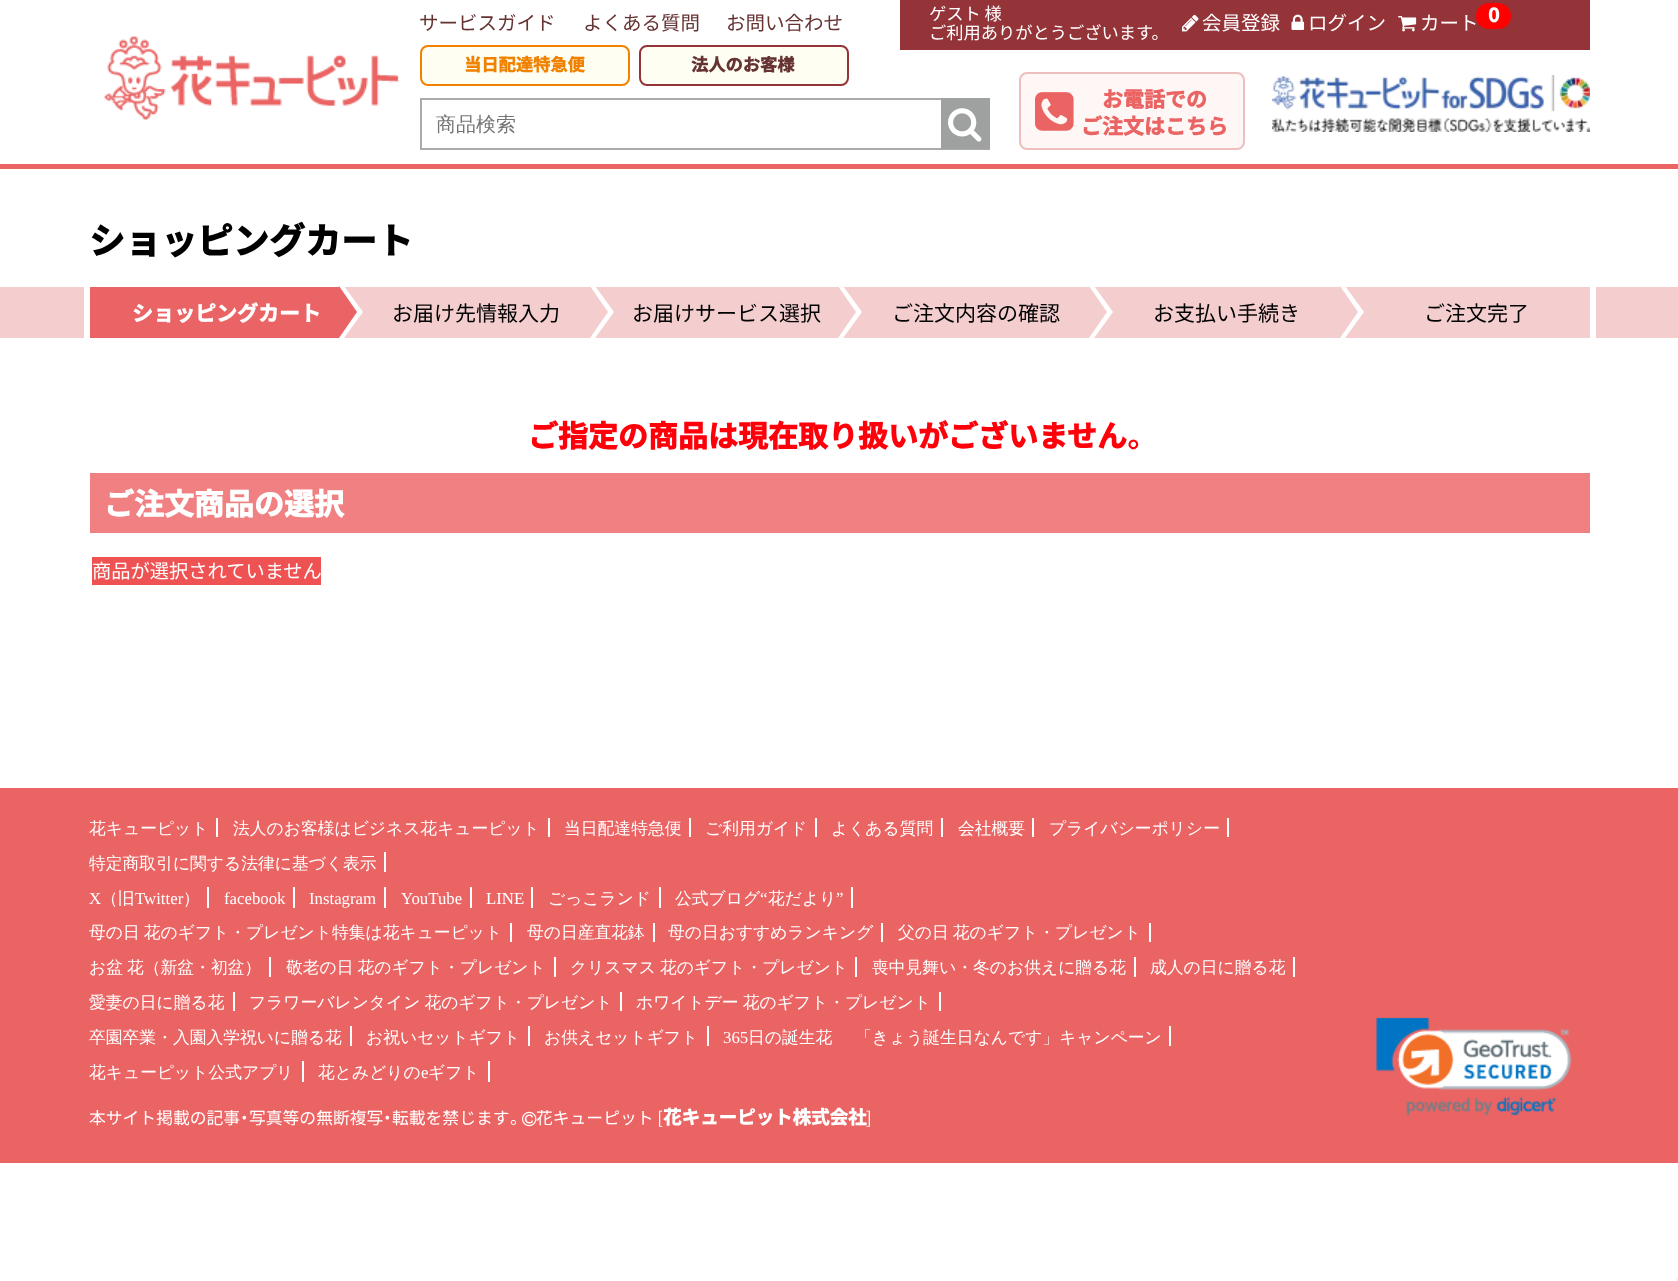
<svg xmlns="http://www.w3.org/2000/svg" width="1678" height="1281">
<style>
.a{font:100 19.5px Noto Sans JP;fill:#633}
.b{font:bold 17.25px Noto Sans JP;fill:#f08200}
.c{font:bold 17.25px Noto Sans JP;fill:#633}
.d{font:100 17.25px Noto Sans JP;fill:#fff}
.e{font:100 19.5px Noto Sans JP;fill:#fff}
.f{font:bold 19.5px Noto Sans JP;fill:#fff}
.g{font:500 20px WenQuanYi Zen Hei;fill:#757575}
.h{font:bold 21px Noto Sans JP;fill:#eb6464}
.i{font:bold 36px Noto Sans JP;fill:#000}
.j{font:bold 21px Noto Sans JP;fill:#fff}
.k{font:100 21px Noto Sans JP;fill:#000}
.l{font:bold 30px Noto Sans JP;fill:#ff000b}
.m{font:bold 30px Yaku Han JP;fill:#ff000b}
.n{font:bold 30px Noto Sans JP;fill:#fff}
.o{font:100 19.25px Noto Sans JP;fill:#fff}
.p{font:500 16.8px WenQuanYi Zen Hei;fill:#fff}
.q{font:16.8px Liberation Serif;fill:#fff}
.r{font:100 16.8px Noto Sans JP;fill:#fff}
.s{font:16.8px Yaku Han JP;fill:#fff}
.t{font:bold 18.5px Noto Sans JP;fill:#fff}
</style>
<rect width="100%" height="100%" fill="#fff"/>
<path fill="#eb6464" d="M0 164h1678v5H0z"/>
<image href="1.png" x="104" y="36" width="295" height="84"/>
<rect fill="#fffef2" stroke="#f08200" stroke-width="2" x="421" y="46" width="208" height="39" rx="7"/>
<rect fill="#fffef2" stroke="#943439" stroke-width="2" x="640" y="46" width="208" height="39" rx="7"/>
<path fill="#943439" d="M900 0h690v50H900z"/>
<image href="2.png" x="1182" y="14" width="17" height="18"/>
<image href="3.png" x="1291" y="14" width="14" height="16"/>
<image href="4.png" x="1398" y="16" width="19" height="16"/>
<rect fill="#f00" x="1476" y="3" width="35" height="26" rx="13"/>
<path fill="none" stroke="#aaa" stroke-width="2" d="M421 99h568v50H421z"/>
<path fill="#9fa0a0" d="M941 98h49v51H941z"/>
<image href="5.png" x="948" y="108" width="34" height="34"/>
<rect fill="#fff6f6" stroke="#edbfbf" stroke-width="2" x="1020" y="73" width="224" height="76" rx="7"/>
<image href="6.png" x="1035" y="92" width="39" height="39"/>
<image href="7.png" x="1272" y="75" width="318" height="57"/>
<path fill="#f4cecf" d="M0 287h1678v51H0z"/>
<path fill="#fff" d="M84 287h6v51H84z"/>
<path fill="#eb6465" d="M90 287h249v51H90z"/>
<path fill="#fff" d="M339 345v-66l24 33z"/>
<path fill="#eb6465" d="M339 338v-52l18 26z"/>
<path fill="#fff" d="M590 345v-66l24 33z"/>
<path fill="#f4cecf" d="M590 338v-52l18 26z"/>
<path fill="#fff" d="M838 345v-66l24 33z"/>
<path fill="#f4cecf" d="M838 338v-52l18 26z"/>
<path fill="#fff" d="M1089 345v-66l24 33z"/>
<path fill="#f4cecf" d="M1089 338v-52l18 26z"/>
<path fill="#fff" d="M1340 345v-66l24 33z"/>
<path fill="#f4cecf" d="M1340 338v-52l18 26z"/>
<path fill="#fff" d="M1590 287h6v51H1590z"/>
<path fill="#f08081" d="M90 473h1500v60H90z"/>
<path fill="#ef5252" d="M92 557h229v28H92z"/>
<path fill="#eb6464" d="M0 788h1678v375H0z"/>
<path fill="#fff" d="M216 818h2v19H216z"/>
<path fill="#fff" d="M548 818h2v19H548z"/>
<path fill="#fff" d="M689 818h2v19H689z"/>
<path fill="#fff" d="M815 818h2v19H815z"/>
<path fill="#fff" d="M941 818h2v19H941z"/>
<path fill="#fff" d="M1032 818h2v19H1032z"/>
<path fill="#fff" d="M1227 818h2v19H1227z"/>
<path fill="#fff" d="M384 852h2v20H384z"/>
<path fill="#fff" d="M207 887h2v21H207z"/>
<path fill="#fff" d="M293 887h2v21H293z"/>
<path fill="#fff" d="M384 887h2v21H384z"/>
<path fill="#fff" d="M470 887h2v21H470z"/>
<path fill="#fff" d="M531 887h2v21H531z"/>
<path fill="#fff" d="M659 887h2v21H659z"/>
<path fill="#fff" d="M851 887h2v21H851z"/>
<path fill="#fff" d="M510 923h2v19H510z"/>
<path fill="#fff" d="M653 923h2v19H653z"/>
<path fill="#fff" d="M881 923h2v19H881z"/>
<path fill="#fff" d="M1149 923h2v19H1149z"/>
<path fill="#fff" d="M269 957h2v20H269z"/>
<path fill="#fff" d="M554 957h2v20H554z"/>
<path fill="#fff" d="M855 957h2v20H855z"/>
<path fill="#fff" d="M1134 957h2v20H1134z"/>
<path fill="#fff" d="M1293 957h2v20H1293z"/>
<path fill="#fff" d="M233 992h2v19H233z"/>
<path fill="#fff" d="M620 992h2v19H620z"/>
<path fill="#fff" d="M939 992h2v19H939z"/>
<path fill="#fff" d="M350 1026h2v20H350z"/>
<path fill="#fff" d="M528 1026h2v20H528z"/>
<path fill="#fff" d="M707 1026h2v20H707z"/>
<path fill="#fff" d="M1169 1026h2v20H1169z"/>
<path fill="#fff" d="M302 1061h2v21H302z"/>
<path fill="#fff" d="M488 1061h2v21H488z"/>
<image href="9.png" x="1376" y="1017" width="196" height="99"/>
<path fill="#f5f5f5" d="M1676 1278h2v3H1676z"/>
<text class="a" x="419" y="30">サービスガイド</text>
<text class="a" x="583" y="30">よくある質問</text>
<text class="a" x="726" y="30">お問い合わせ</text>
<text class="b" x="464" y="71">当日配達特急便</text>
<text class="c" x="691" y="71">法人のお客様</text>
<text class="d" x="929" y="20">ゲスト 様</text>
<text class="d" x="929" y="39">ご利用ありがとうございます。</text>
<text class="e" x="1202" y="30">会員登録</text>
<text class="e" x="1308" y="30">ログイン</text>
<text class="e" x="1420" y="30">カート</text>
<text class="f" x="1488" y="22">0</text>
<text class="g" x="436" y="131">商品検索</text>
<text class="h" x="1102" y="107">お電話での</text>
<text class="h" x="1081" y="134">ご注文はこちら</text>
<text class="i" x="89" y="254">ショッピングカート</text>
<text class="j" x="132" y="321">ショッピングカート</text>
<text class="k" x="392" y="321">お届け先情報入力</text>
<text class="k" x="632" y="321">お届けサービス選択</text>
<text class="k" x="892" y="321">ご注文内容の確認</text>
<text class="k" x="1153" y="321">お支払い手続き</text>
<text class="k" x="1424" y="321">ご注文完了</text>
<text class="l" x="528" y="447">ご指定の商品は現在取り扱いがございません</text>
<text class="m" x="1127" y="447">。</text>
<text class="n" x="104" y="515">ご注文商品の選択</text>
<text class="o" x="92" y="578">商品が選択されていません</text>
<text class="p" x="89" y="834">花キューピット</text>
<text class="p" x="233" y="834">法人のお客様はビジネス花キューピット</text>
<text class="p" x="564" y="834">当日配達特急便</text>
<text class="p" x="705" y="834">ご利用ガイド</text>
<text class="p" x="831" y="834">よくある質問</text>
<text class="p" x="958" y="834">会社概要</text>
<text class="p" x="1049" y="834">プライバシーポリシー</text>
<text class="p" x="89" y="869">特定商取引に関する法律に基づく表示</text>
<text class="q" x="89" y="904">X</text>
<text class="p" x="101" y="904">（旧</text>
<text class="q" x="135" y="904">Twitter</text>
<text class="p" x="183" y="904">）</text>
<text class="q" x="224" y="904">facebook</text>
<text class="q" x="309" y="904">Instagram</text>
<text class="q" x="401" y="904">YouTube</text>
<text class="q" x="486" y="904">LINE</text>
<text class="p" x="548" y="904">ごっこランド</text>
<text class="p" x="675" y="904">公式ブログ</text>
<text class="q" x="760" y="904">“</text>
<text class="p" x="768" y="904">花だより</text>
<text class="q" x="836" y="904">”</text>
<text class="p" x="89" y="938" word-spacing="-1">母の日 花のギフト・プレゼント</text>
<text class="p" x="332" y="938">特集は花キューピット</text>
<text class="p" x="527" y="938">母の日産直花鉢</text>
<text class="p" x="668" y="938">母の日おすすめランキング</text>
<text class="p" x="898" y="938" word-spacing="-1">父の日 花のギフト・プレゼント</text>
<text class="p" x="89" y="973" word-spacing="-1">お盆 花（新盆・初盆）</text>
<text class="p" x="286" y="973" word-spacing="-1">敬老の日 花のギフト・プレゼント</text>
<text class="p" x="570" y="973" word-spacing="-1">クリスマス 花のギフト・プレゼント</text>
<text class="p" x="872" y="973">喪中見舞い・冬のお供えに贈る花</text>
<text class="p" x="1150" y="973">成人の日に贈る花</text>
<text class="p" x="89" y="1008">愛妻の日に贈る花</text>
<text class="p" x="249" y="1008" word-spacing="-1">フラワーバレンタイン 花のギフト・プレゼント</text>
<text class="p" x="636" y="1008" word-spacing="-1">ホワイトデー 花のギフト・プレゼント</text>
<text class="p" x="89" y="1043">卒園卒業・入園入学祝いに贈る花</text>
<text class="p" x="366" y="1043">お祝いセットギフト</text>
<text class="p" x="544" y="1043">お供えセットギフト</text>
<text class="q" x="723" y="1043">365</text>
<text class="p" x="748" y="1043">日の誕生花</text>
<text class="p" x="855" y="1043">「きょう誕生日なんです」キャンペーン</text>
<text class="p" x="89" y="1078">花キューピット公式アプリ</text>
<text class="p" x="318" y="1078">花とみどりの</text>
<text class="q" x="421" y="1078">e</text>
<text class="p" x="428" y="1078">ギフト</text>
<text class="r" x="89" y="1124">本サイト掲載の記事</text>
<text class="s" x="240" y="1124">・</text>
<text class="r" x="249" y="1124">写真等の無断複写</text>
<text class="s" x="383" y="1124">・</text>
<text class="r" x="392" y="1124">転載を禁じます</text>
<text class="s" x="510" y="1124">。</text>
<text class="r" x="536" y="1124">花キューピット [</text>
<image href="8.png" x="522" y="1111" width="15" height="16"/>
<text class="t" x="663" y="1124">花キューピット株式会社</text>
<text class="r" x="866" y="1124">]</text>
</svg>
